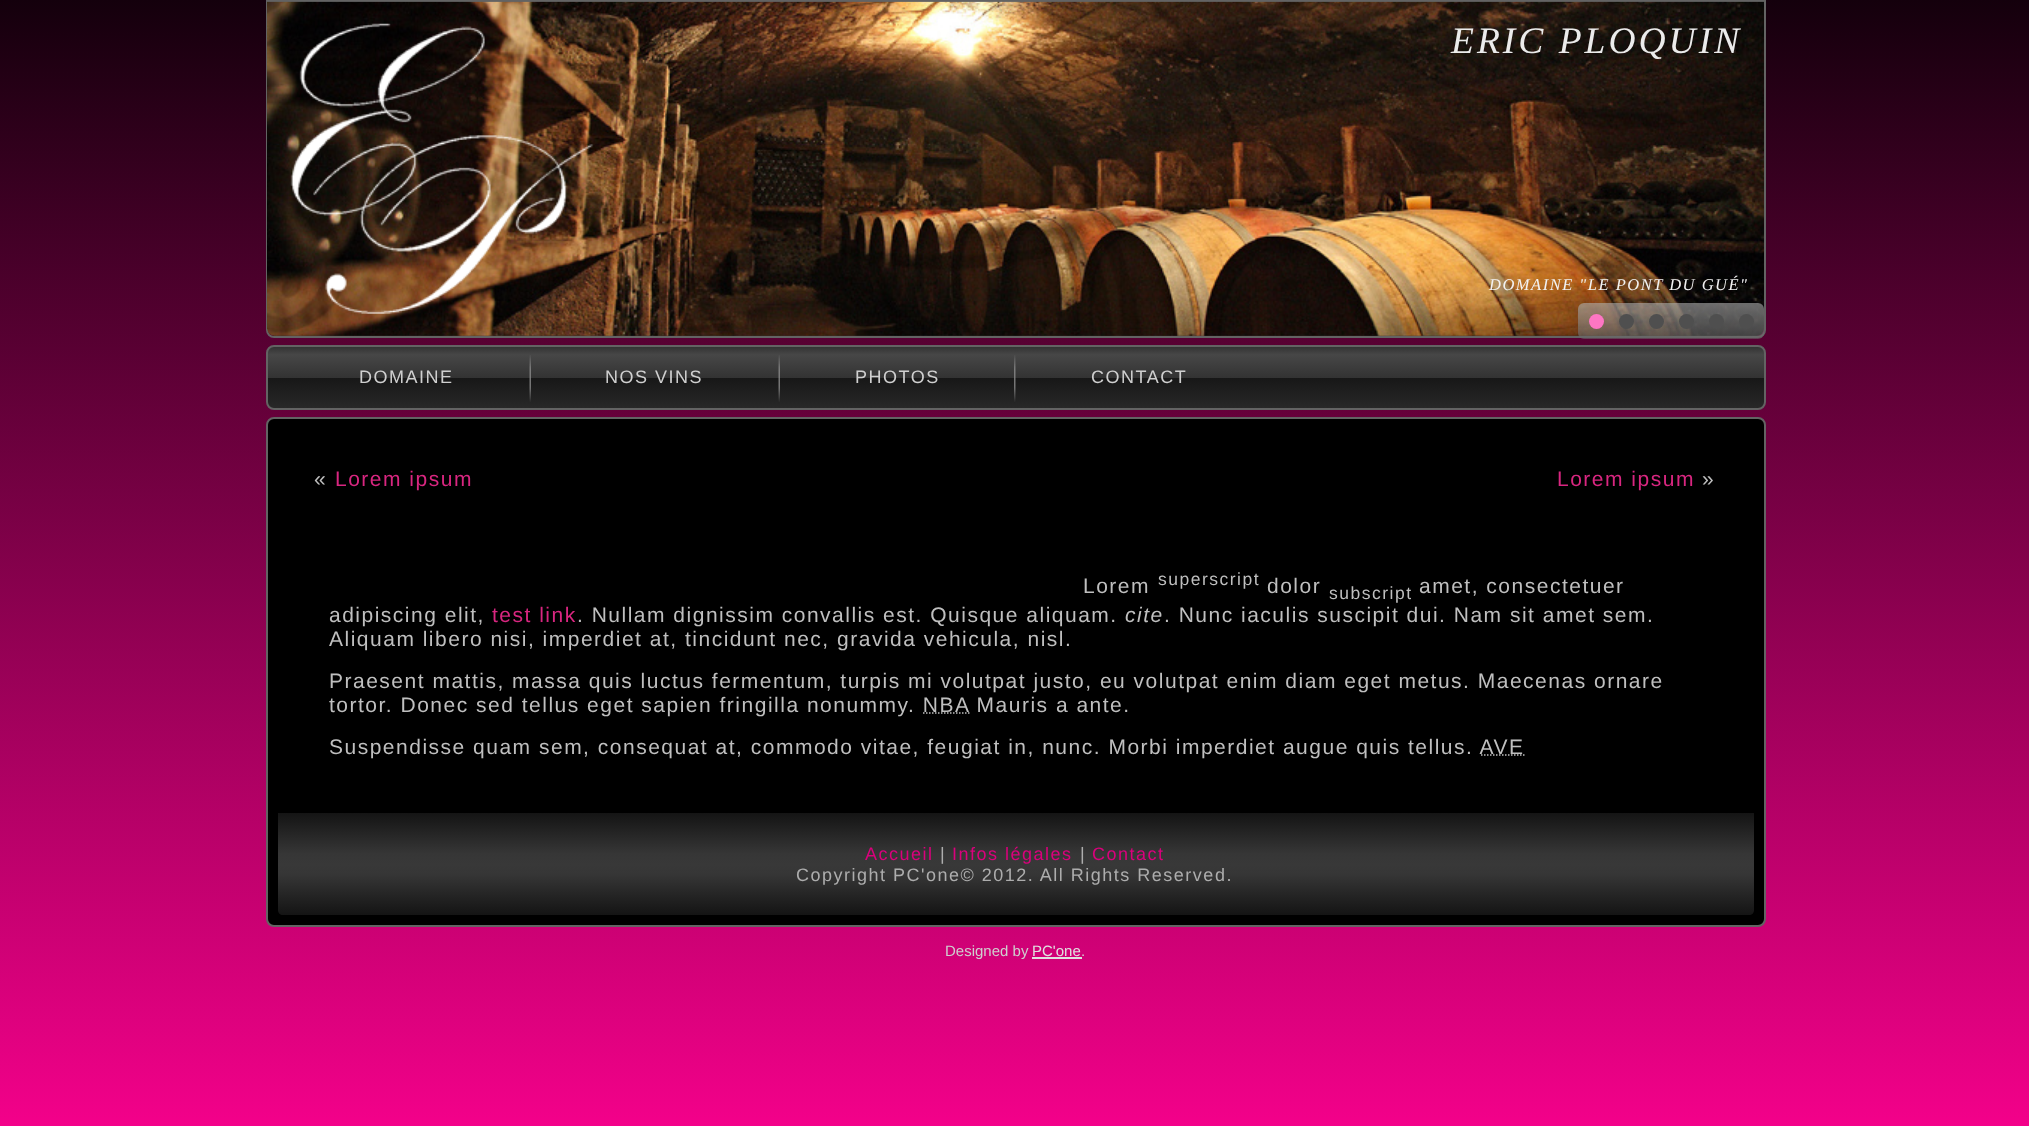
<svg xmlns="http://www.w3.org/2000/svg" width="2029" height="1126">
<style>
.a{font:italic 37.5px Liberation Serif;letter-spacing:3px;fill:#ebebeb}
.b{font:italic 16.5px Liberation Serif;letter-spacing:1.5px;fill:#f2f2f2}
.c{font:18px Liberation Sans;letter-spacing:1.5px;fill:#cfcfcf}
.d{font:21px Liberation Sans;letter-spacing:1.5px;fill:#bfbfbf}
.e{font:21px Liberation Sans;letter-spacing:1.5px;fill:#d92680}
.f{font:17.5px Liberation Sans;letter-spacing:1.5px;fill:#bfbfbf}
.g{font:italic 21px Liberation Sans;letter-spacing:1.5px;fill:#bfbfbf}
.h{font:18px Liberation Sans;letter-spacing:1.5px;fill:#da017c}
.i{font:18px Liberation Sans;letter-spacing:1.5px;fill:#adadad}
.j{font:15px Liberation Sans;fill:#cfcfcf}
.k{font:15px Liberation Sans;fill:#e0e0e0}
</style>
<defs>
<linearGradient id="g1" gradientUnits="userSpaceOnUse" x1="1015" y1="0" x2="1015" y2="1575"><stop offset="0" stop-color="#14000c"/><stop offset="0.75" stop-color="#fe0190"/><stop offset="1" stop-color="#fe4db2"/></linearGradient>
<linearGradient id="g2" gradientUnits="userSpaceOnUse" x1="1671" y1="303" x2="1671" y2="339"><stop offset="0" stop-color="#b2b2b2" stop-opacity="0.6"/><stop offset="0.67" stop-color="#808080" stop-opacity="0.6"/><stop offset="1" stop-color="#666" stop-opacity="0.6"/></linearGradient>
<linearGradient id="g3" gradientUnits="userSpaceOnUse" x1="1016" y1="345" x2="1016" y2="410"><stop offset="0" stop-color="#2e2e2e"/><stop offset="0.15" stop-color="#474747"/><stop offset="0.5" stop-color="#333"/><stop offset="0.5" stop-color="#171717"/><stop offset="1" stop-color="#292929"/></linearGradient>
<linearGradient id="g4" gradientUnits="userSpaceOnUse" x1="1016" y1="813" x2="1016" y2="915"><stop offset="0" stop-color="#141414"/><stop offset="0.4" stop-color="#363636"/><stop offset="0.5" stop-color="#383838"/><stop offset="0.6" stop-color="#363636"/><stop offset="1" stop-color="#141414"/></linearGradient>
</defs>
<rect width="100%" height="100%" fill="#fff"/>
<path fill="url(#g1)" d="M0 0h2029v1126H0z"/>
<path fill="none" stroke="#636363" stroke-width="2" d="M267 1h1498v329c0 4-3 7-7 7h-1484c-4 0-7-3-7-7z"/>
<image href="1.png" x="267" y="1" width="1497" height="335"/>
<rect fill="url(#g2)" x="1578" y="303" width="186" height="36" rx="6"/>
<circle fill="#fe76c3" cx="1596.5" cy="321.5" r="7.5"/>
<circle fill="#4f4f4f" cx="1626.5" cy="321.5" r="7.5"/>
<circle fill="#4f4f4f" cx="1656.5" cy="321.5" r="7.5"/>
<circle fill="#4f4f4f" cx="1686.5" cy="321.5" r="7.5"/>
<circle fill="#4f4f4f" cx="1716.5" cy="321.5" r="7.5"/>
<circle fill="#4f4f4f" cx="1746.5" cy="321.5" r="7.5"/>
<rect fill="url(#g3)" stroke="#636363" stroke-width="2" x="267" y="346" width="1498" height="63" rx="7"/>
<image href="2.png" x="529" y="355" width="2" height="47"/>
<image href="2.png" x="778" y="355" width="2" height="47"/>
<image href="3.png" x="1014" y="355" width="2" height="47"/>
<rect fill="#000" stroke="#636363" stroke-width="2" x="267" y="418" width="1498" height="508" rx="7"/>
<path fill="none" stroke="#bfbfbf" stroke-width="1.5" stroke-dasharray="1.5 1.5" d="M923 713h47.5"/>
<path fill="none" stroke="#bfbfbf" stroke-width="1.5" stroke-dasharray="1.5 1.5" d="M1481 755h45"/>
<path fill="url(#g4)" d="M278 813h1476v97c0 3-2 5-5 5h-1466c-3 0-5-2-5-5z"/>
<path fill="#e0e0e0" d="M1032 957h50v2H1032z"/>
<text class="a" x="1451" y="53">ERIC PLOQUIN</text>
<text class="b" x="1489" y="290">DOMAINE "LE PONT DU GUÉ"</text>
<text class="c" x="359" y="383">DOMAINE</text>
<text class="c" x="605" y="383">NOS VINS</text>
<text class="c" x="855" y="383">PHOTOS</text>
<text class="c" x="1091" y="383">CONTACT</text>
<text class="d" x="314" y="486">«</text>
<text class="e" x="335" y="486">Lorem ipsum</text>
<text class="e" x="1557" y="486">Lorem ipsum</text>
<text class="d" x="1702" y="486">»</text>
<text class="d" x="1083" y="593">Lorem</text>
<text class="f" x="1158" y="585">superscript</text>
<text class="d" x="1267" y="593">dolor</text>
<text class="f" x="1329" y="599">subscript</text>
<text class="d" x="1419" y="593">amet, consectetuer</text>
<text class="d" x="329" y="622">adipiscing elit,</text>
<text class="e" x="492" y="622">test link</text>
<text class="d" x="577" y="622">. Nullam dignissim convallis est. Quisque aliquam.</text>
<text class="g" x="1125" y="622">cite</text>
<text class="d" x="1164" y="622">. Nunc iaculis suscipit dui. Nam sit amet sem.</text>
<text class="d" x="329" y="646">Aliquam libero nisi, imperdiet at, tincidunt nec, gravida vehicula, nisl.</text>
<text class="d" x="329" y="688">Praesent mattis, massa quis luctus fermentum, turpis mi volutpat justo, eu volutpat enim diam eget metus. Maecenas ornare</text>
<text class="d" x="329" y="712">tortor. Donec sed tellus eget sapien fringilla nonummy. NBA Mauris a ante.</text>
<text class="d" x="329" y="754">Suspendisse quam sem, consequat at, commodo vitae, feugiat in, nunc. Morbi imperdiet augue quis tellus. AVE</text>
<text class="h" x="865" y="860">Accueil</text>
<text class="i" x="940" y="860">|</text>
<text class="h" x="952" y="860">Infos légales</text>
<text class="i" x="1080" y="860">|</text>
<text class="h" x="1092" y="860">Contact</text>
<text class="i" x="796" y="881">Copyright PC'one© 2012. All Rights Reserved.</text>
<text class="j" x="945" y="956">Designed by</text>
<text class="k" x="1032" y="956">PC'one</text>
<text class="j" x="1081" y="956">.</text>
</svg>
